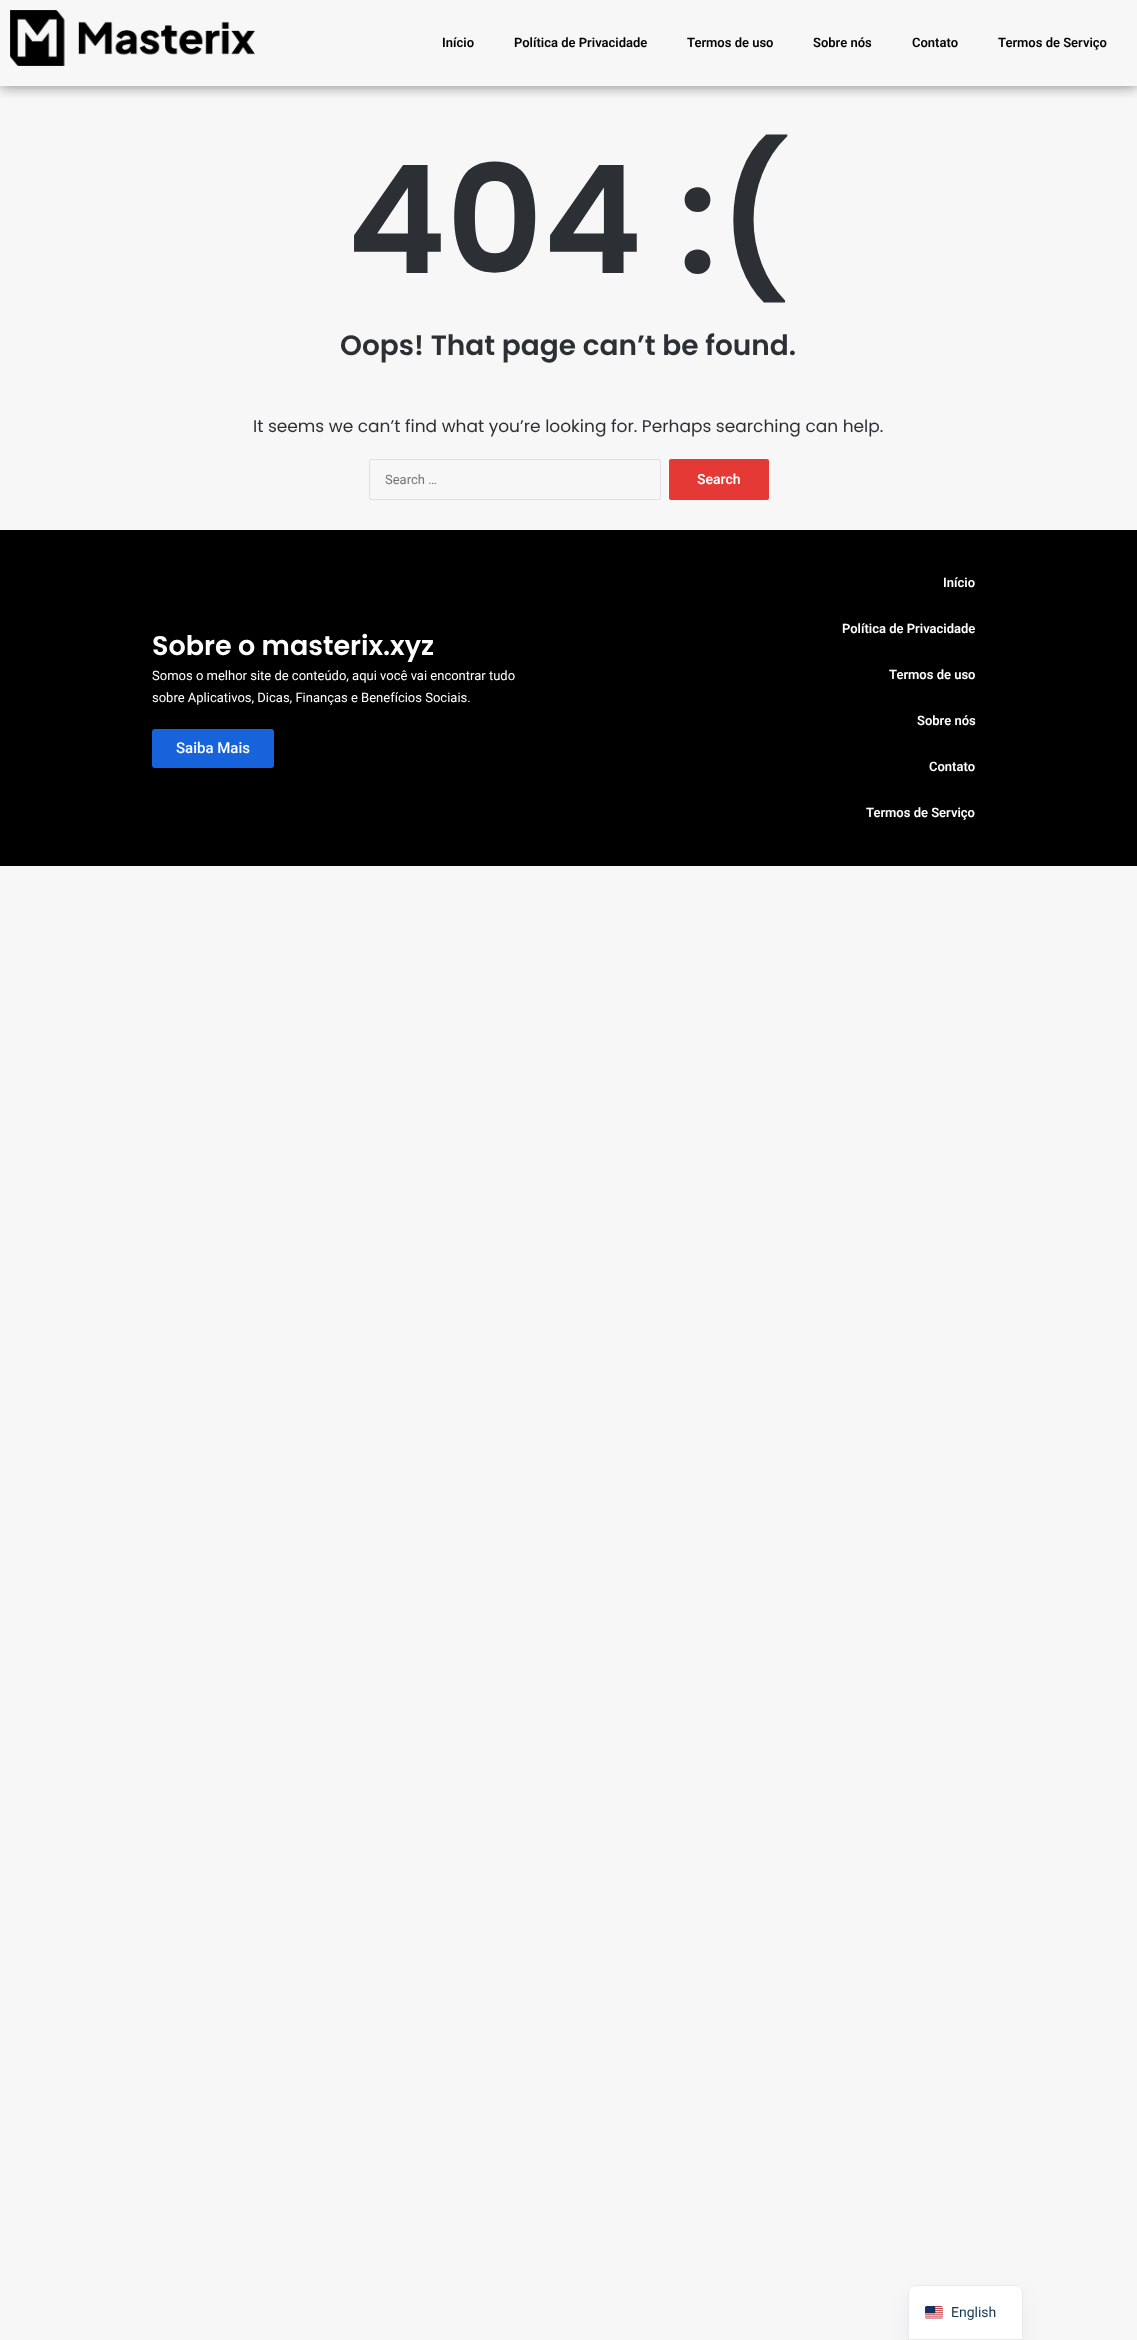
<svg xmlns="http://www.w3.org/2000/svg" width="1137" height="2340">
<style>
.a{font:600 13px Roboto;fill:#000}
.b{font:600 150px Poppins;fill:#2c2f34}
.c{font:600 28px Poppins;fill:#2c2f34}
.d{font:17px Poppins;fill:#2c2f34}
.e{font:13px Roboto;fill:#757575}
.f{font:600 14px Roboto;fill:#fff}
.g{font:600 27px Poppins;fill:#fff}
.h{font:13px Roboto;fill:#fff}
.i{font:500 15px Roboto;fill:#fff}
.j{font:600 13px Roboto;fill:#fff}
.k{font:14px Roboto;fill:#143852}
</style>
<defs>
<clipPath id="clip1"><path d="M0 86h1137v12H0z"/></clipPath>
</defs>
<rect width="100%" height="100%" fill="#f7f7f7"/>
<g clip-path="url(#clip1)">
<path fill="#00000080" filter="blur(7px)" d="M0 0h1137v86H0z"/>
</g>
<image href="1.png" x="10" y="10" width="245" height="56"/>
<rect fill="none" stroke="#e0e0e0" x="369.5" y="459.5" width="291" height="40" rx="1.5"/>
<rect fill="#e53935" x="669" y="459" width="100" height="41" rx="2"/>
<path fill="#000" d="M0 530h1137v336H0z"/>
<rect fill="#1763dc" x="152" y="729" width="122" height="39" rx="3"/>
<rect fill="#0000000d" filter="blur(10px)" x="908" y="2295" width="115" height="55" rx="8"/>
<path fill="#fff" d="M916 2285h99c4.5 0 8 3.5 8 8v47h-115v-47c0-4.5 3.5-8 8-8z"/>
<path fill="none" stroke="#1438521a" d="M916 2285.5h99c4 0 7.5 3.5 7.5 7.5v46.5h-114v-46.5c0-4 3.5-7.5 7.5-7.5z"/>
<image href="2.png" x="925" y="2306" width="18" height="13"/>
<text class="a" x="442" y="47">Início</text>
<text class="a" x="514" y="47">Política de Privacidade</text>
<text class="a" x="687" y="47">Termos de uso</text>
<text class="a" x="813" y="47">Sobre nós</text>
<text class="a" x="912" y="47">Contato</text>
<text class="a" x="998" y="47">Termos de Serviço</text>
<text class="b" x="347" y="273">404 :(</text>
<text class="c" x="340" y="355">Oops! That page can’t be found.</text>
<text class="d" x="253" y="432">It seems we can’t find what you’re looking for. Perhaps searching can help.</text>
<text class="e" x="385" y="484">Search …</text>
<text class="f" x="697" y="484">Search</text>
<text class="g" x="152" y="655">Sobre o masterix.xyz</text>
<text class="h" x="152" y="680">Somos o melhor site de conteúdo, aqui você vai encontrar tudo</text>
<text class="h" x="152" y="702">sobre Aplicativos, Dicas, Finanças e Benefícios Sociais.</text>
<text class="i" x="176" y="753">Saiba Mais</text>
<text class="j" x="943" y="587">Início</text>
<text class="j" x="842" y="633">Política de Privacidade</text>
<text class="j" x="889" y="679">Termos de uso</text>
<text class="j" x="917" y="725">Sobre nós</text>
<text class="j" x="929" y="771">Contato</text>
<text class="j" x="866" y="817">Termos de Serviço</text>
<text class="k" x="951" y="2317">English</text>
</svg>
